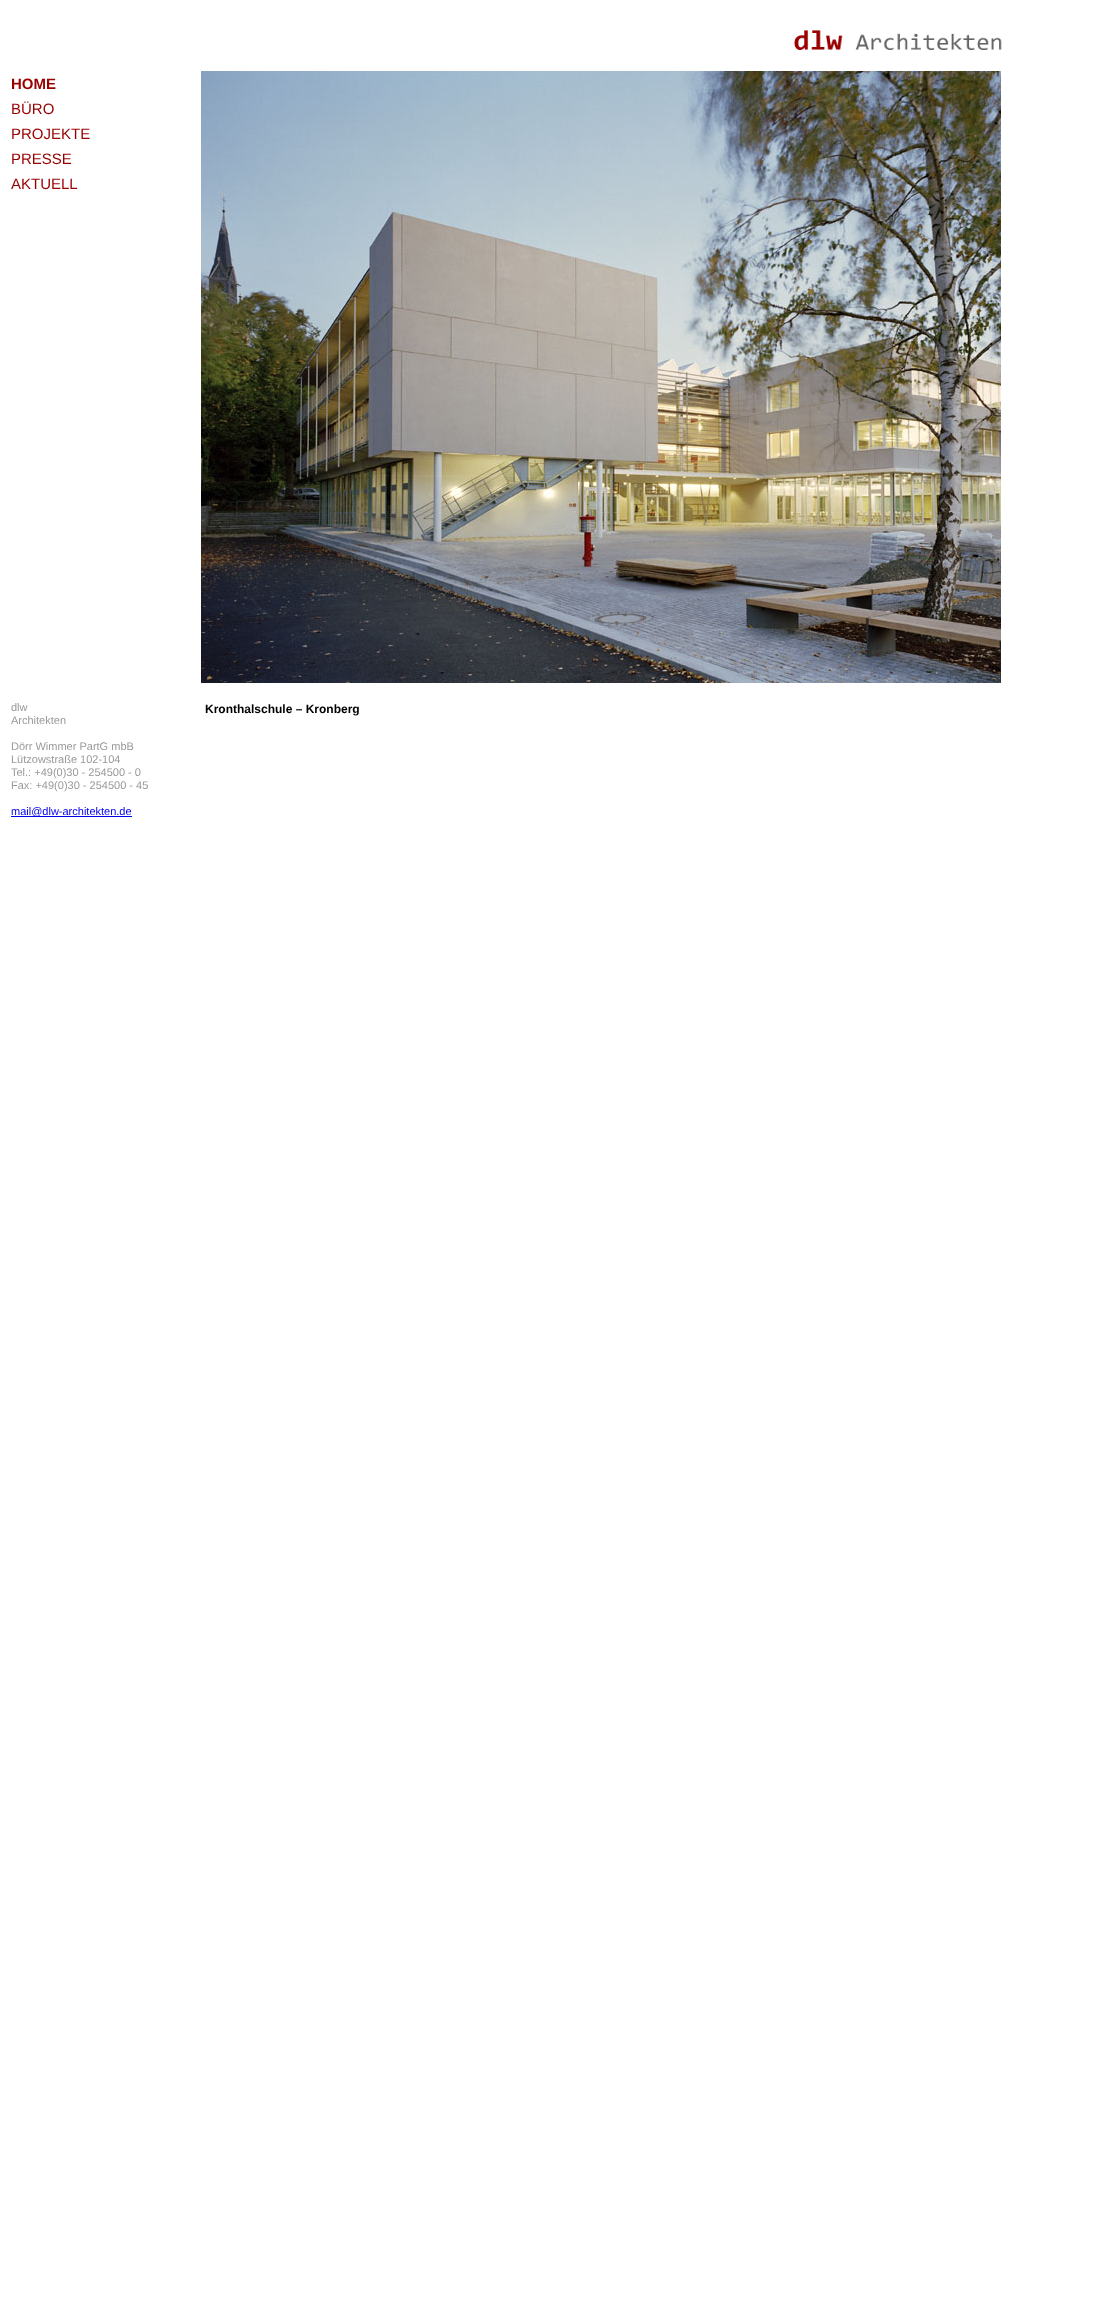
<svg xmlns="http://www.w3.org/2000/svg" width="1101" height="2309">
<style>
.a{font:bold 15px Liberation Sans;fill:#900}
.b{font:15px Liberation Sans;fill:#900}
.c{font:11px Liberation Sans;fill:#999}
.d{font:11px Liberation Sans;fill:#00e}
.e{font:bold 12px Liberation Sans;fill:#000}
</style>
<rect width="100%" height="100%" fill="#fff"/>
<image href="1.png" x="794" y="30" width="208" height="20"/>
<image href="2.png" x="201" y="71" width="800" height="612"/>
<path fill="#00e" d="M11 816h121v1H11z"/>
<text class="a" x="11" y="89">HOME</text>
<text class="b" x="11" y="114">BÜRO</text>
<text class="b" x="11" y="139">PROJEKTE</text>
<text class="b" x="11" y="164">PRESSE</text>
<text class="b" x="11" y="189">AKTUELL</text>
<text class="c" x="11" y="711">dlw</text>
<text class="c" x="11" y="724">Architekten</text>
<text class="c" x="11" y="750">Dörr Wimmer PartG mbB</text>
<text class="c" x="11" y="763">Lützowstraße 102-104</text>
<text class="c" x="11" y="776">Tel.: +49(0)30 - 254500 - 0</text>
<text class="c" x="11" y="789">Fax: +49(0)30 - 254500 - 45</text>
<text class="d" x="11" y="815">mail@dlw-architekten.de</text>
<text class="e" x="205" y="713">Kronthalschule – Kronberg</text>
</svg>
